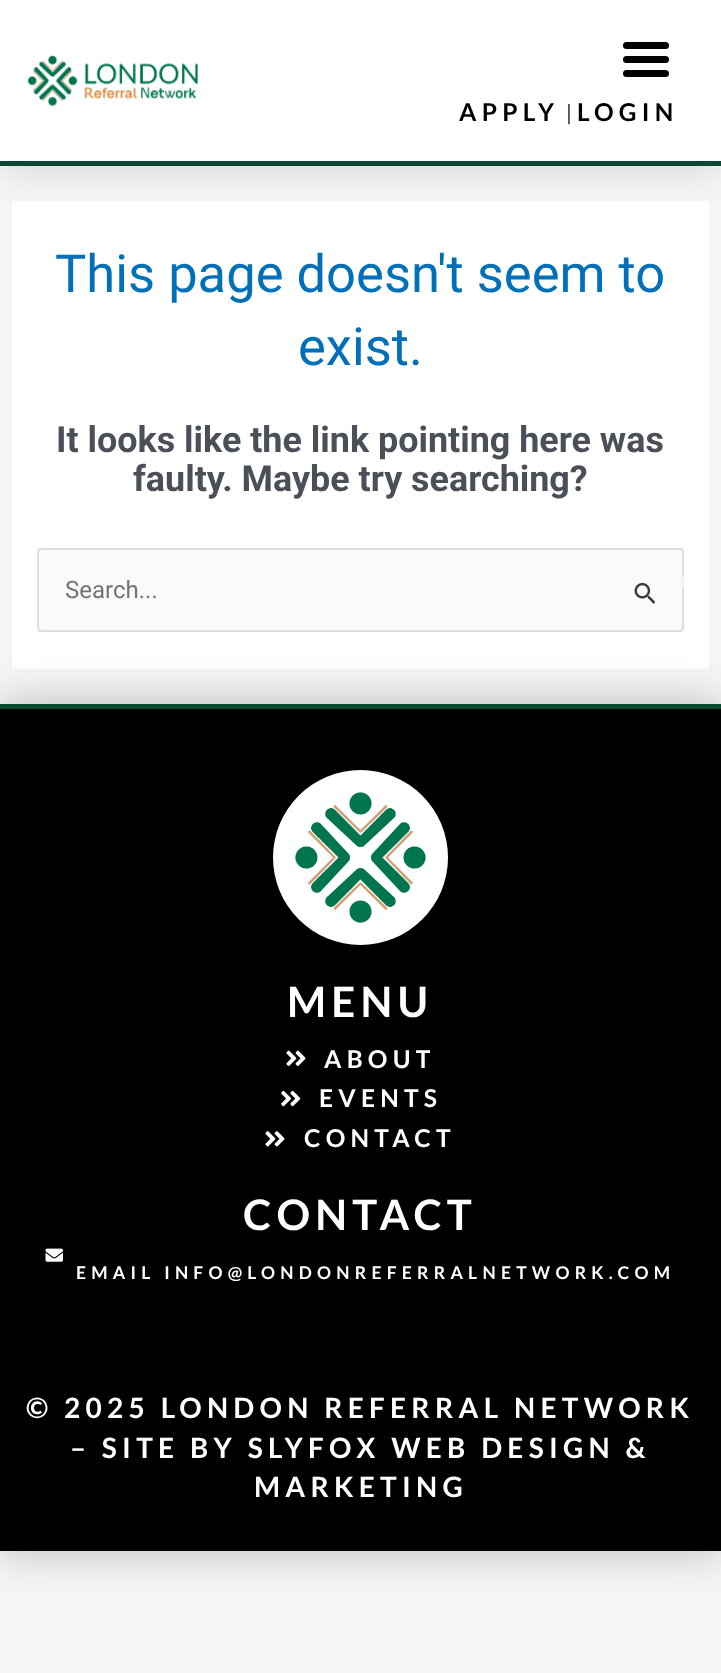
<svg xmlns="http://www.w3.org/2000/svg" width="721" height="1673">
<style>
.a{font:bold 24.5px Lato;letter-spacing:5.25px;fill:#000}
.b{font:24px Roboto;fill:#4b4f58}
.c{font:52.5px Roboto;fill:#0170b9}
.d{font:bold 35.9px Roboto;fill:#4b4f58}
.e{font:24px Roboto;fill:#757575}
.f{font:24px Roboto;fill:#f1f1f1}
.g{font:bold 42px Lato;letter-spacing:5.25px;fill:#fff}
.h{font:bold 24.5px Lato;letter-spacing:5.25px;fill:#fff}
.i{font:bold 17.5px Lato;letter-spacing:5.25px;fill:#fff}
.j{font:bold 28px Lato;letter-spacing:5.25px;fill:#fff}
</style>
<defs>
<clipPath id="clip1"><rect x="606" y="548" width="78" height="68" rx="4"/></clipPath>
</defs>
<rect width="100%" height="100%" fill="#f5f5f5"/>
<path fill="#fff" d="M12 201h697v468H12z"/>
<path fill="#00000026" filter="blur(22px)" d="M0 0h721v166H0z"/>
<path fill="#fff" d="M0 0h721v161H0z"/>
<path fill="#084a2f" d="M0 161h721v5H0z"/>
<image href="1.png" x="28" y="55" width="170" height="52"/>
<rect fill="#000" x="623" y="56" width="46" height="7" rx="3.5"/>
<rect fill="#000" x="623" y="42" width="46" height="7" rx="3.5"/>
<rect fill="#000" x="623" y="70" width="46" height="7" rx="3.5"/>
<rect fill="#fafafa" stroke="#ddd" stroke-width="2" x="38" y="549" width="645" height="82" rx="3"/>
<image href="2.png" x="634" y="582" width="21" height="22"/>
<path fill="#00000040" filter="blur(22px)" d="M0 704h721v847H0z"/>
<path fill="#000" d="M0 709h721v842H0z"/>
<path fill="#084a2f" d="M0 704h721v5H0z"/>
<circle fill="#fff" cx="360.5" cy="857.5" r="87.5"/>
<image href="3.png" x="295" y="792" width="131" height="131"/>
<image href="4.png" x="286" y="1050" width="20" height="16"/>
<image href="5.png" x="281" y="1090" width="20" height="17"/>
<image href="6.png" x="265" y="1131" width="20" height="16"/>
<image href="7.png" x="45" y="1248" width="18" height="14"/>
<text class="a" x="459" y="121">APPLY</text>
<text class="b" x="566" y="121">|</text>
<text class="a" x="577" y="121">LOGIN</text>
<text class="c" x="55" y="292">This page doesn't seem to</text>
<text class="c" x="298" y="365">exist.</text>
<text class="d" x="56" y="452">It looks like the link pointing here was</text>
<text class="d" x="133" y="491">faulty. Maybe try searching?</text>
<text class="e" x="65" y="598">Search...</text>
<g clip-path="url(#clip1)">
<text class="f" x="680" y="589">r</text>
</g>
<text class="g" x="287" y="1017">MENU</text>
<text class="h" x="324" y="1068">ABOUT</text>
<text class="h" x="319" y="1107">EVENTS</text>
<text class="h" x="304" y="1147">CONTACT</text>
<text class="g" x="243" y="1230">CONTACT</text>
<text class="i" x="76" y="1279">EMAIL INFO@LONDONREFERRALNETWORK.COM</text>
<text class="j" x="26" y="1418">© 2025 LONDON REFERRAL NETWORK</text>
<text class="j" x="70" y="1458">– SITE BY SLYFOX WEB DESIGN &amp;</text>
<text class="j" x="254" y="1497">MARKETING</text>
</svg>
